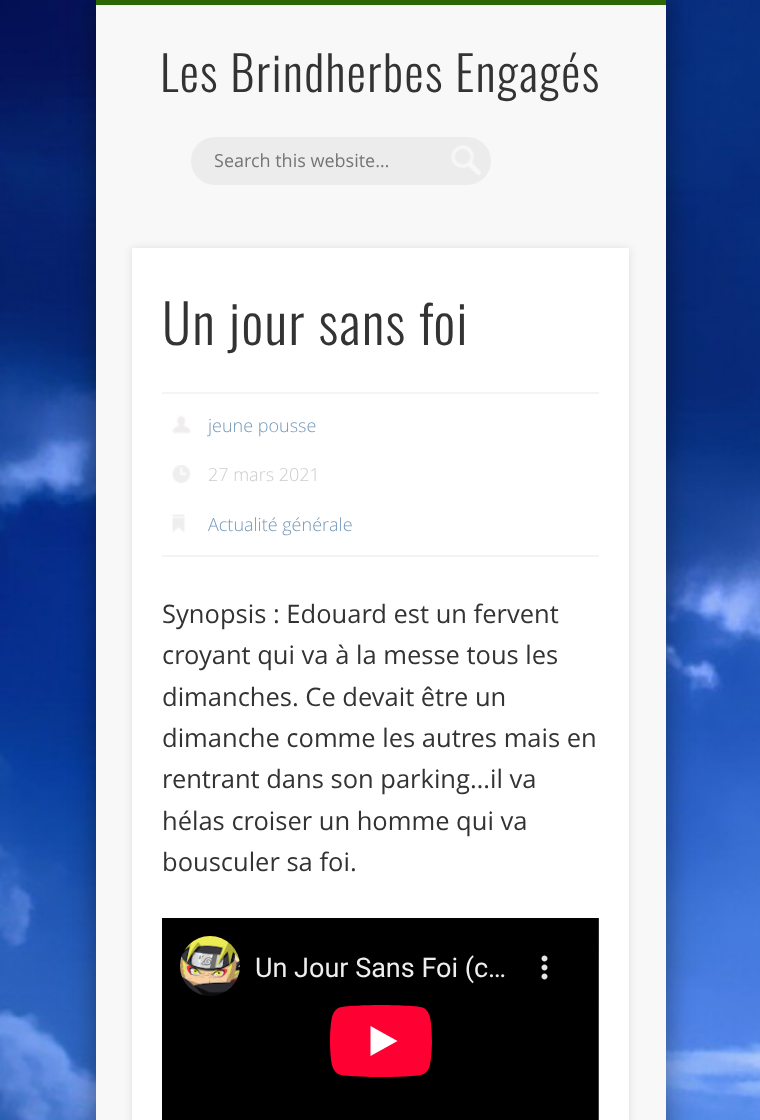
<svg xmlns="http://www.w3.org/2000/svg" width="760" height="1120">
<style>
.a{font:300 48px Oswald;letter-spacing:1.5px;fill:#333}
.b{font:18px Open Sans;fill:#757575}
.c{font:300 54px Oswald;letter-spacing:1.5px;fill:#333}
.d{font:300 18px Open Sans;fill:#7597b9}
.e{font:300 18px Open Sans;fill:#ccc}
.f{font:25.5px Open Sans;fill:#333}
</style>
<defs>
<clipPath id="clip1"><path d="M215 147h252v26H215z"/></clipPath>
</defs>
<rect width="100%" height="100%" fill="#fff"/>
<image href="1.png" x="0" y="0" width="760" height="1120"/>
<path fill="#00000066" filter="blur(13.5px)" d="M96 0h570v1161H96z"/>
<path fill="#f8f8f8" d="M96 5h570v1115H96z"/>
<path fill="#2d6605" d="M96 0h570v5H96z"/>
<rect fill="#ececec" x="191" y="137" width="300" height="48" rx="24"/>
<image href="2.png" x="451" y="145" width="30" height="30"/>
<path fill="#0000001a" filter="blur(4px)" d="M132 248h497v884H132z"/>
<path fill="#fff" d="M132 248h497v872H132z"/>
<path fill="#f4f4f4" d="M162 392h437v2H162z"/>
<path fill="#f4f4f4" d="M162 555h437v2H162z"/>
<image href="3.png" x="172" y="415" width="19" height="19"/>
<image href="4.png" x="172" y="465" width="19" height="18"/>
<image href="5.png" x="172" y="514" width="13" height="19"/>
<image href="6.png" x="162" y="918" width="437" height="202"/>
<text class="a" x="160" y="92">Les Brindherbes Engagés</text>
<g clip-path="url(#clip1)">
<text class="b" x="214" y="167">Search this website…</text>
</g>
<text class="c" x="162" y="345">Un jour sans foi</text>
<text class="d" x="208" y="432">jeune pousse</text>
<text class="e" x="208" y="481">27 mars 2021</text>
<text class="d" x="208" y="531">Actualité générale</text>
<text class="f" x="162" y="623">Synopsis : Edouard est un fervent</text>
<text class="f" x="162" y="664">croyant qui va à la messe tous les</text>
<text class="f" x="162" y="706">dimanches. Ce devait être un</text>
<text class="f" x="162" y="747">dimanche comme les autres mais en</text>
<text class="f" x="162" y="788">rentrant dans son parking…il va</text>
<text class="f" x="162" y="830">hélas croiser un homme qui va</text>
<text class="f" x="162" y="871">bousculer sa foi.</text>
</svg>
